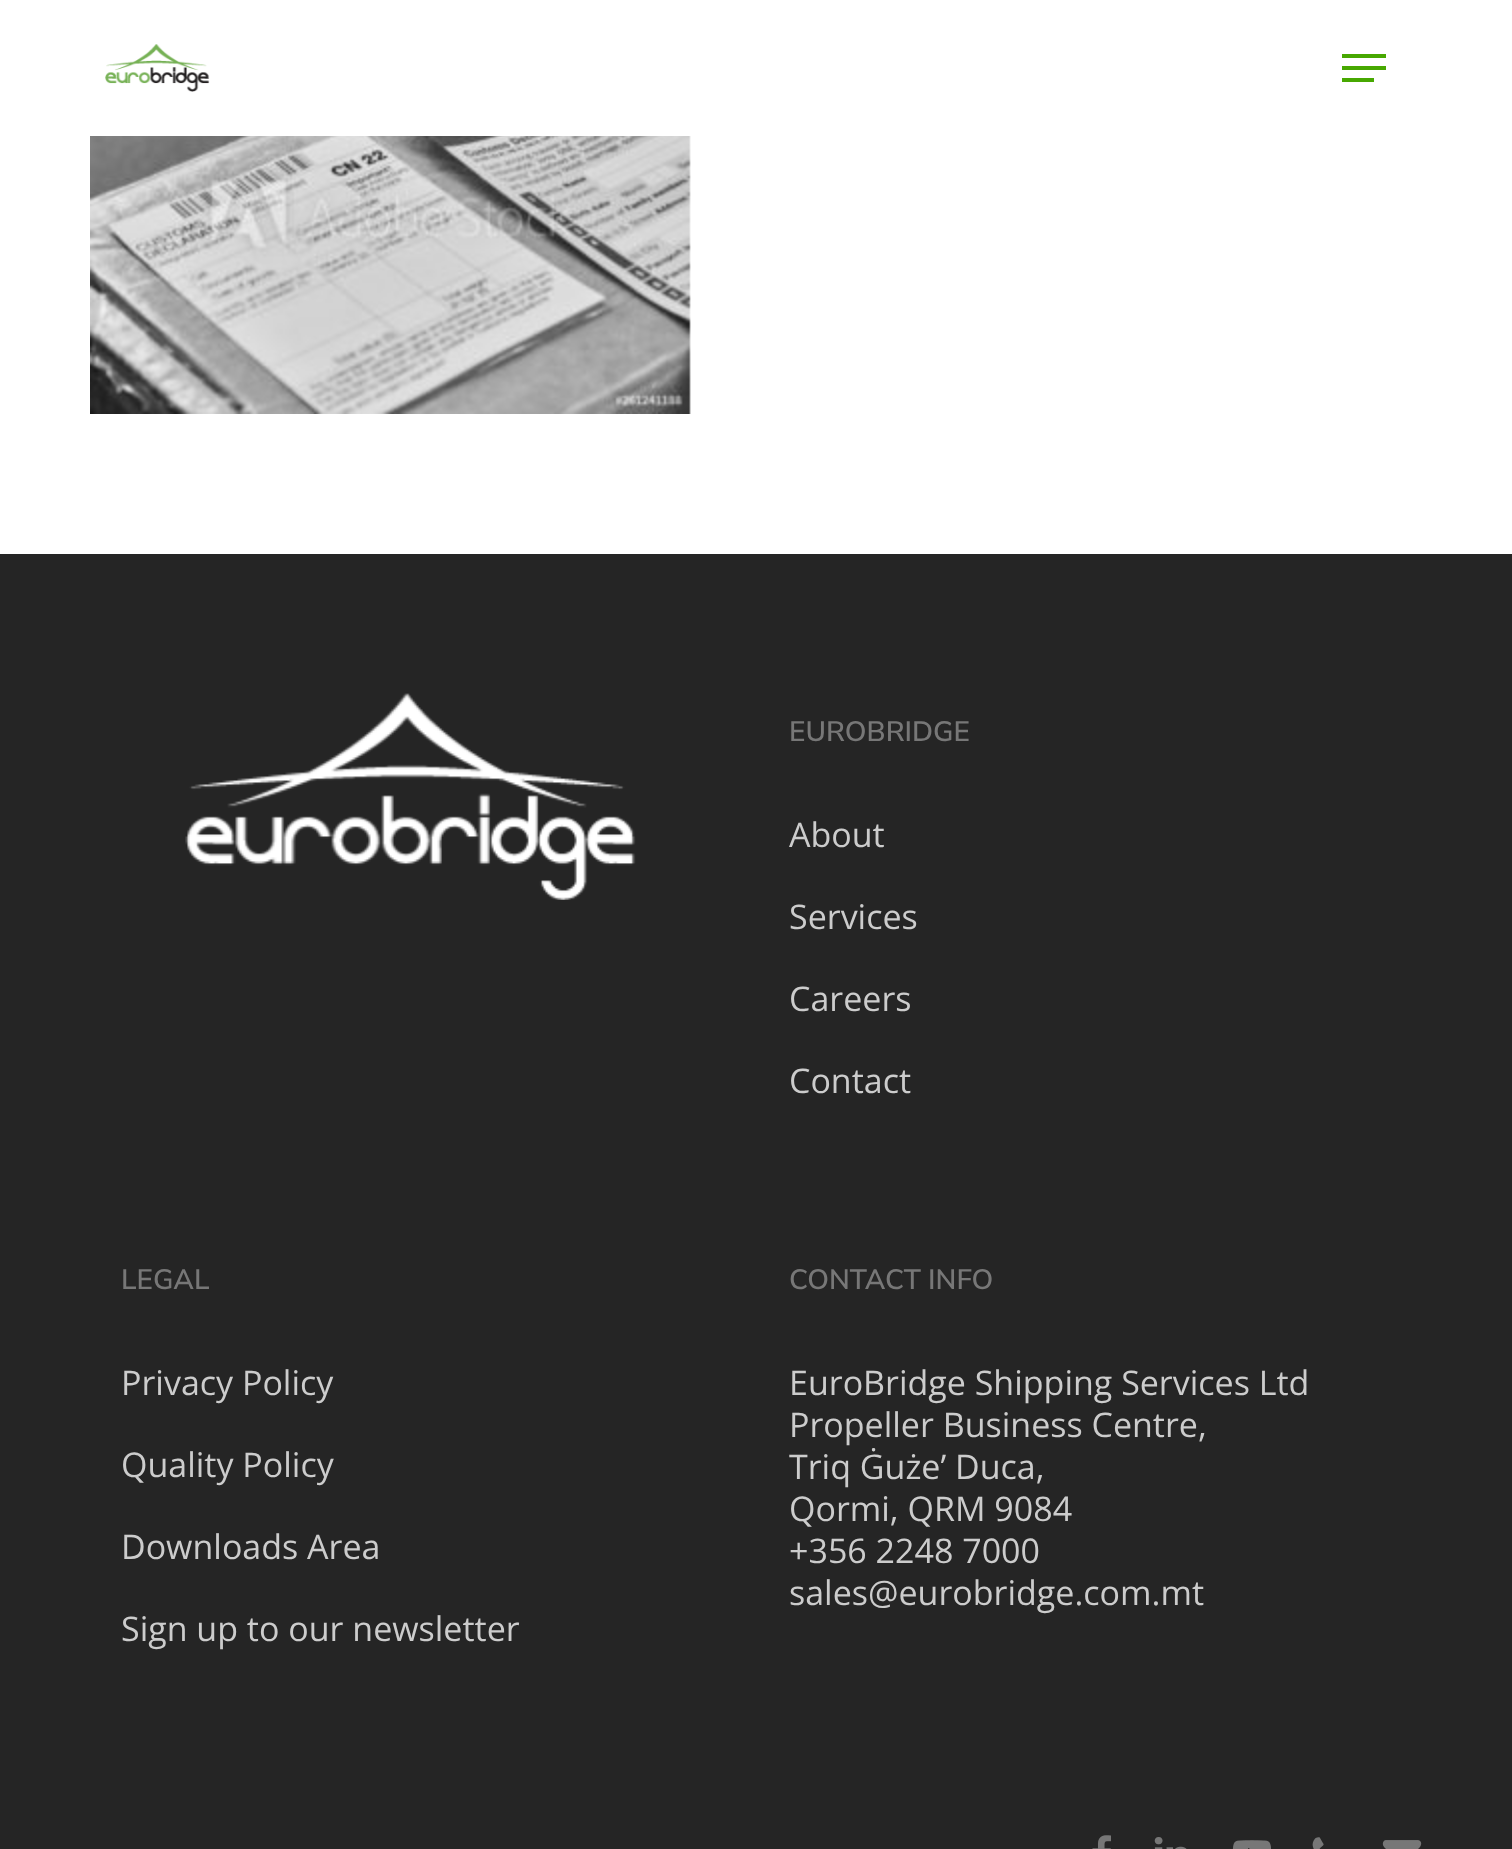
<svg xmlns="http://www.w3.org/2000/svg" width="1512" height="1849">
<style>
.a{font:600 28px Nunito Sans;fill:#777}
.b{font:34px Open Sans;fill:#ccc}
</style>
<rect width="100%" height="100%" fill="#fff"/>
<image href="1.png" x="105" y="44" width="105" height="48"/>
<path fill="#47a801" d="M1342 54h44v4H1342z"/>
<path fill="#47a801" d="M1342 78h32v4H1342z"/>
<path fill="#47a801" d="M1342 66h44v4H1342z"/>
<image href="2.png" x="90" y="136" width="601" height="278"/>
<path fill="#252525" d="M0 554h1512v1295H0z"/>
<image href="3.png" x="185" y="693" width="451" height="207"/>
<image href="4.png" x="1092" y="1835" width="19" height="14"/>
<image href="5.png" x="1154" y="1837" width="33" height="12"/>
<image href="6.png" x="1232" y="1840" width="39" height="9"/>
<image href="7.png" x="1312" y="1837" width="12" height="12"/>
<image href="8.png" x="1382" y="1840" width="40" height="9"/>
<text class="a" x="789" y="741">EUROBRIDGE</text>
<text class="b" x="789" y="847">About</text>
<text class="b" x="789" y="929">Services</text>
<text class="b" x="789" y="1011">Careers</text>
<text class="b" x="789" y="1093">Contact</text>
<text class="a" x="121" y="1289">LEGAL</text>
<text class="b" x="121" y="1395">Privacy Policy</text>
<text class="b" x="121" y="1477">Quality Policy</text>
<text class="b" x="121" y="1559">Downloads Area</text>
<text class="b" x="121" y="1641">Sign up to our newsletter</text>
<text class="a" x="789" y="1289">CONTACT INFO</text>
<text class="b" x="789" y="1395">EuroBridge Shipping Services Ltd</text>
<text class="b" x="789" y="1437">Propeller Business Centre,</text>
<text class="b" x="789" y="1479">Triq Ġuże’ Duca,</text>
<text class="b" x="789" y="1521">Qormi, QRM 9084</text>
<text class="b" x="789" y="1563">+356 2248 7000</text>
<text class="b" x="789" y="1605">sales@eurobridge.com.mt</text>
</svg>
